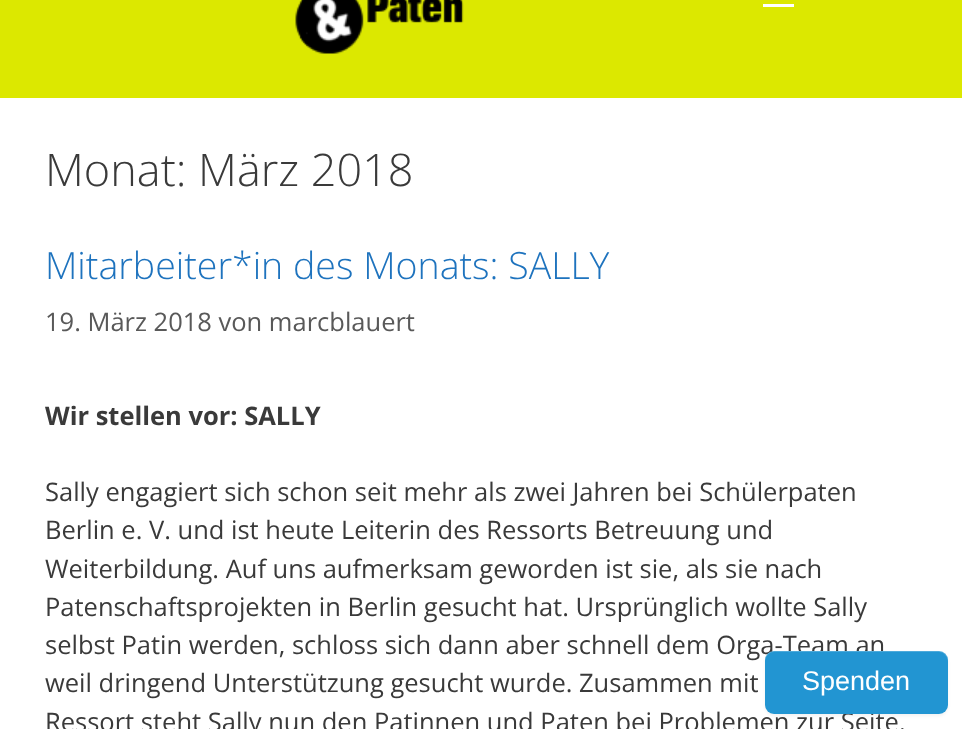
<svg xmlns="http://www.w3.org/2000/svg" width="962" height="729">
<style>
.a{font:300 45px Open Sans;fill:#3a3a3a}
.b{font:300 37.5px Open Sans;fill:#1e73be}
.c{font:25.5px Open Sans;fill:#595959}
.d{font:bold 25.5px Open Sans;fill:#3a3a3a}
.e{font:25.5px Open Sans;fill:#3a3a3a}
.f{font:27px Liberation Sans;fill:#fff}
</style>
<rect width="100%" height="100%" fill="#fff"/>
<path fill="#dce800" d="M0 0h962v98H0z"/>
<image href="1.png" x="295" y="0" width="169" height="54"/>
<path fill="#fff" d="M763 4h31v3H763z"/>
<rect fill="#0000000d" filter="blur(1.5px)" x="765" y="653" width="183" height="63" rx="9"/>
<text class="a" x="45" y="186">Monat: März 2018</text>
<text class="b" x="45" y="279">Mitarbeiter*in des Monats: SALLY</text>
<text class="c" x="45" y="331">19. März 2018 von marcblauert</text>
<text class="d" x="45" y="425">Wir stellen vor: SALLY</text>
<text class="e" x="45" y="501">Sally engagiert sich schon seit mehr als zwei Jahren bei Schülerpaten</text>
<text class="e" x="45" y="539">Berlin e. V. und ist heute Leiterin des Ressorts Betreuung und</text>
<text class="e" x="45" y="578">Weiterbildung. Auf uns aufmerksam geworden ist sie, als sie nach</text>
<text class="e" x="45" y="616">Patenschaftsprojekten in Berlin gesucht hat. Ursprünglich wollte Sally</text>
<text class="e" x="45" y="654">selbst Patin werden, schloss sich dann aber schnell dem Orga-Team an</text>
<text class="e" x="45" y="692">weil dringend Unterstützung gesucht wurde. Zusammen mit</text>
<text class="e" x="45" y="731">Ressort steht Sally nun den Patinnen und Paten bei Problemen zur Seite.</text>
<rect fill="#2295d2" x="765" y="651" width="183" height="63" rx="9"/>
<path fill="#ffffff33" d="M774 652h165c5 0 9 5 9 10v-2c0-5-4-9-9-9h-165c-5 0-9 4-9 9v2c0-5 4-10 9-10z"/>
<text class="f" x="802" y="690">Spenden</text>
</svg>
